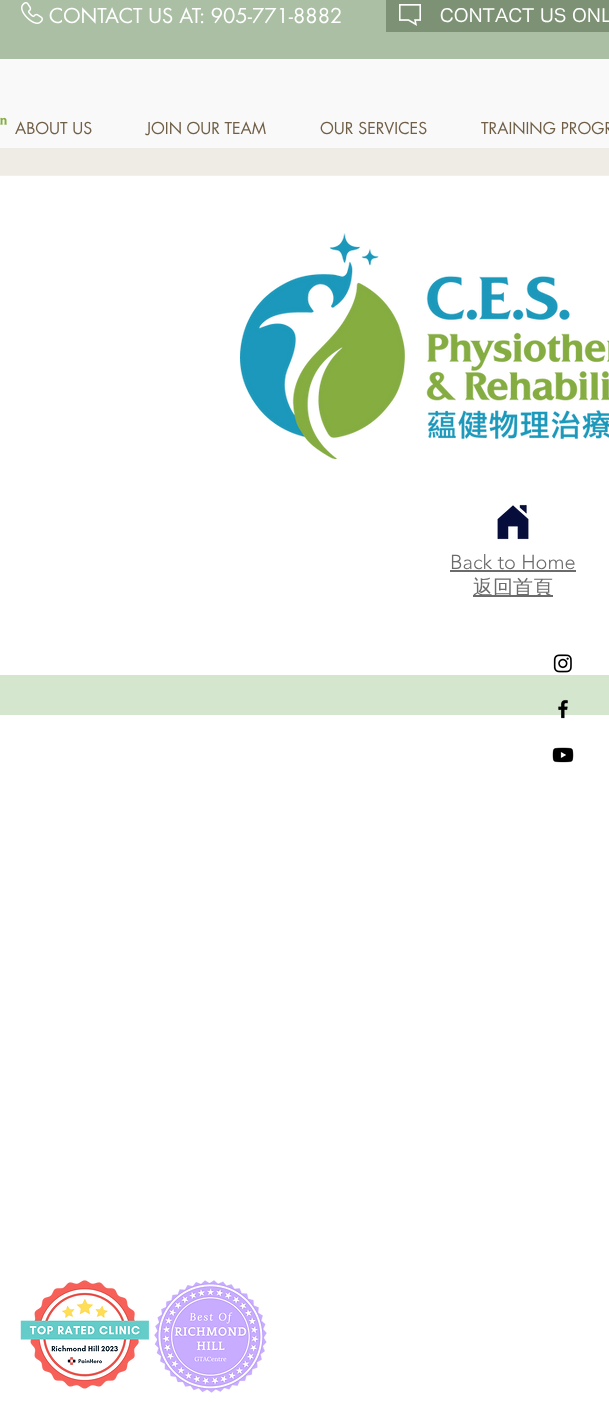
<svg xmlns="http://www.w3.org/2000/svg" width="609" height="1420">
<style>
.a{font:20px futura;fill:#fff}
.b{font:500 18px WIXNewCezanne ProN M;fill:#fff}
.c{font:16px futura;fill:#705f47}
.d{font:300 20px 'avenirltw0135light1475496';fill:#6b6b6b}
.e{font:500 20px WenQuanYi Zen Hei;fill:#6b6b6b}
</style>
<rect width="100%" height="100%" fill="#fff"/>
<path fill="#f3efe9" d="M0 175h609v1H0z"/>
<path fill="#aabfa4" d="M0 0h609v59H0z"/>
<image href="1.png" x="21" y="2" width="22" height="22"/>
<path fill="#7d9174" d="M386 0h223v32H386z"/>
<image href="2.png" x="399" y="4" width="22" height="22"/>
<path fill="#f9f9f9" d="M0 59h609v89H0z"/>
<image href="3.png" x="0" y="117" width="7" height="8"/>
<path fill="#efebe5" d="M0 148h609v27H0z"/>
<image href="4.png" x="240" y="233" width="369" height="226"/>
<image href="5.png" x="497" y="504" width="32" height="36"/>
<path fill="#6b6b6b" d="M450 570h126v2H450z"/>
<path fill="#6b6b6b" d="M473 595h80v2H473z"/>
<image href="6.png" x="553" y="654" width="19" height="19"/>
<path fill="#d5e6ce" d="M0 675h609v40H0z"/>
<image href="7.png" x="558" y="699" width="10" height="20"/>
<image href="8.png" x="552" y="747" width="22" height="16"/>
<image href="9.png" x="20" y="1280" width="130" height="109"/>
<image href="10.png" x="154" y="1280" width="113" height="113"/>
<text class="a" x="49" y="23">CONTACT US AT: 905-771-8882</text>
<text class="b" x="440" y="22">CONTACT US ONL</text>
<text class="c" x="15" y="134">ABOUT US</text>
<text class="c" x="146" y="134">JOIN OUR TEAM</text>
<text class="c" x="320" y="134">OUR SERVICES</text>
<text class="c" x="481" y="134">TRAINING PROGR</text>
<text class="d" x="450" y="569">Back to Home</text>
<text class="e" x="473" y="594">返回首頁</text>
</svg>
